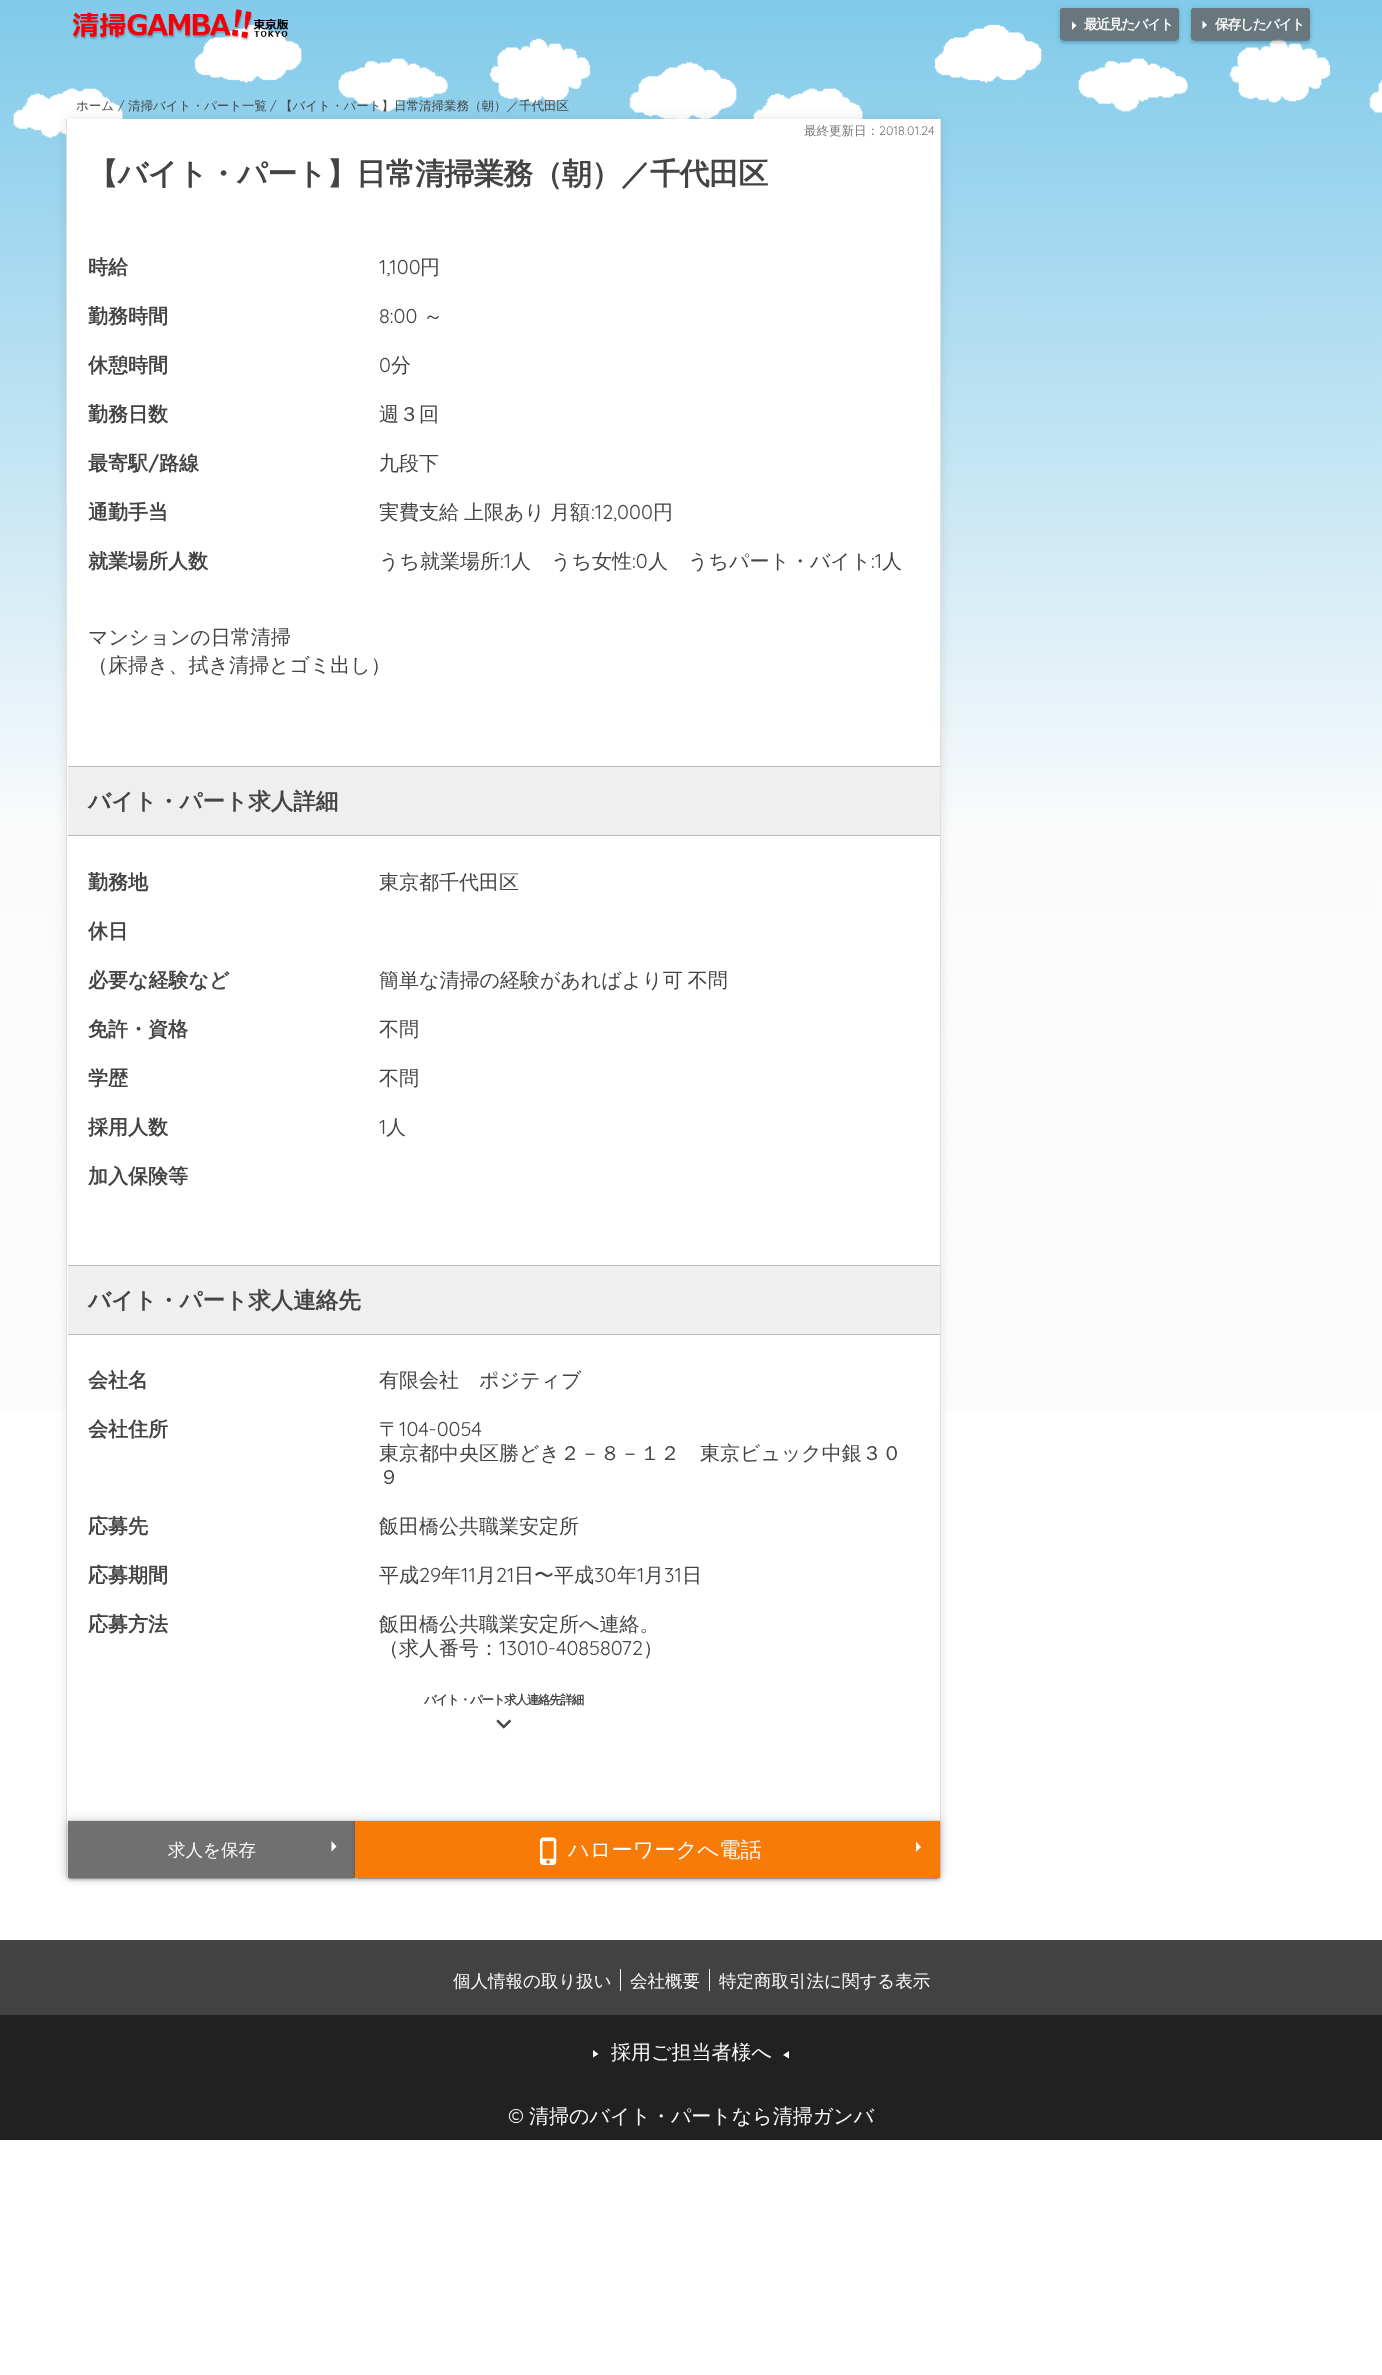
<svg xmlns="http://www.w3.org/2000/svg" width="1382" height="2375">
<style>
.a{font:bold 13.75px WenQuanYi Zen Hei;letter-spacing:-1.25px;fill:#fafafa}
.b{font:500 12.5px WenQuanYi Zen Hei;fill:#444}
.c{font:12.5px Quicksand;fill:#444}
.d{font:500 12.5px WenQuanYi Zen Hei;fill:#777}
.e{font:12.5px Quicksand;fill:#777}
.f{font:bold 30px WenQuanYi Zen Hei;letter-spacing:-0.6px;fill:#444}
.g{font:bold 20px WenQuanYi Zen Hei;fill:#444}
.h{font:20px Quicksand;fill:#444}
.i{font:500 20px WenQuanYi Zen Hei;fill:#444}
.j{font:bold 20px Quicksand;fill:#444}
.k{font:bold 22.5px WenQuanYi Zen Hei;fill:#444}
.l{font:bold 12.5px WenQuanYi Zen Hei;letter-spacing:-1.25px;fill:#444}
.m{font:500 17.5px WenQuanYi Zen Hei;fill:#fafafa}
.n{font:500 21.25px WenQuanYi Zen Hei;fill:#fafafa}
.o{font:500 20px WenQuanYi Zen Hei;fill:#fafafa}
.p{font:20px Quicksand;fill:#fafafa}
</style>
<defs>
<linearGradient id="g1" gradientUnits="userSpaceOnUse" x1="691" y1="0" x2="691" y2="2375"><stop offset="0" stop-color="#80caea"/><stop offset="0.35" stop-color="#fbfbfb"/><stop offset="1" stop-color="#fff"/></linearGradient>
<clipPath id="clip1"><path d="M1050 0h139v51h-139zm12.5 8h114c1.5 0 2.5 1 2.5 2.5v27c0 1.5-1 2.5-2.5 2.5h-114c-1.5 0-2.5-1-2.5-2.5v-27c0-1.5 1-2.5 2.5-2.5z" clip-rule="evenodd"/></clipPath>
<clipPath id="clip2"><path d="M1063 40h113v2H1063z"/></clipPath>
<clipPath id="clip3"><path d="M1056 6h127v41h-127zm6.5 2h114c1.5 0 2.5 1 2.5 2.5v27c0 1.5-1 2.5-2.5 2.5h-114c-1.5 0-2.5-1-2.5-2.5v-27c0-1.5 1-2.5 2.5-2.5z" clip-rule="evenodd"/></clipPath>
<clipPath id="clip4"><path d="M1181 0h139v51h-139zm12.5 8h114c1.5 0 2.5 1 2.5 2.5v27c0 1.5-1 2.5-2.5 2.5h-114c-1.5 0-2.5-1-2.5-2.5v-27c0-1.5 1-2.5 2.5-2.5z" clip-rule="evenodd"/></clipPath>
<clipPath id="clip5"><path d="M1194 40h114v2H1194z"/></clipPath>
<clipPath id="clip6"><path d="M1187 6h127v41h-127zm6.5 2h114c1.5 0 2.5 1 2.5 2.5v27c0 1.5-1 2.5-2.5 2.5h-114c-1.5 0-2.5-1-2.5-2.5v-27c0-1.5 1-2.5 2.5-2.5z" clip-rule="evenodd"/></clipPath>
<clipPath id="clip7"><path d="M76 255h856v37h-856zm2 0h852v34h-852z" clip-rule="evenodd"/></clipPath>
<clipPath id="clip8"><path d="M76 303h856v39h-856zm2 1h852v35h-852z" clip-rule="evenodd"/></clipPath>
<clipPath id="clip9"><path d="M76 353h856v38h-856zm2 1h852v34h-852z" clip-rule="evenodd"/></clipPath>
<clipPath id="clip10"><path d="M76 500h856v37h-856zm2 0h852v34h-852z" clip-rule="evenodd"/></clipPath>
<clipPath id="clip11"><path d="M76 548h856v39h-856zm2 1h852v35h-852z" clip-rule="evenodd"/></clipPath>
<clipPath id="clip12"><path d="M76 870h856v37h-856zm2 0h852v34h-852z" clip-rule="evenodd"/></clipPath>
<clipPath id="clip13"><path d="M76 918h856v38h-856zm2 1h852v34h-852z" clip-rule="evenodd"/></clipPath>
<clipPath id="clip14"><path d="M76 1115h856v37h-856zm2 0h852v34h-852z" clip-rule="evenodd"/></clipPath>
<clipPath id="clip15"><path d="M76 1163h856v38h-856zm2 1h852v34h-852z" clip-rule="evenodd"/></clipPath>
<clipPath id="clip16"><path d="M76 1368h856v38h-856zm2 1h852v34h-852z" clip-rule="evenodd"/></clipPath>
<clipPath id="clip17"><path d="M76 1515h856v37h-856zm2 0h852v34h-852z" clip-rule="evenodd"/></clipPath>
<clipPath id="clip18"><path d="M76 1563h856v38h-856zm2 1h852v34h-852z" clip-rule="evenodd"/></clipPath>
</defs>
<rect width="100%" height="100%" fill="#fff"/>
<path fill="url(#g1)" d="M0 0h1382v1410H0z"/>
<image href="1.png" x="13" y="24" width="1369" height="114"/>
<image href="2.png" x="72" y="9" width="217" height="32"/>
<g clip-path="url(#clip1)">
<rect fill="#0000001f" filter="blur(3px)" x="1060" y="9" width="119" height="32" rx="2.5"/>
</g>
<g clip-path="url(#clip2)">
<path fill="#00000033" filter="blur(0.5px)" d="M1063 14h113v27H1063z"/>
</g>
<g clip-path="url(#clip3)">
<rect fill="#00000024" filter="blur(1px)" x="1060" y="10" width="119" height="33" rx="2.5"/>
</g>
<rect fill="#616161cc" x="1060" y="8" width="119" height="32" rx="2.5"/>
<path fill="#fff" d="M1072 30v-8.5l4.5 4z"/>
<g clip-path="url(#clip4)">
<rect fill="#0000001f" filter="blur(3px)" x="1191" y="9" width="119" height="32" rx="2.5"/>
</g>
<g clip-path="url(#clip5)">
<path fill="#00000033" filter="blur(0.5px)" d="M1194 14h114v27H1194z"/>
</g>
<g clip-path="url(#clip6)">
<rect fill="#00000024" filter="blur(1px)" x="1191" y="10" width="119" height="33" rx="2.5"/>
</g>
<rect fill="#616161cc" x="1191" y="8" width="119" height="32" rx="2.5"/>
<path fill="#fff" d="M1202.5 29v-8.5l4.5 4.5z"/>
<path fill="#0000001a" filter="blur(6px)" d="M66 119h875v1759H66z"/>
<path fill="#fff" d="M67 119h873v1759H67z"/>
<path fill="#e4dfda" d="M940 119h1v1759H940z"/>
<path fill="#e4dfda" d="M66 119h1v1759H66z"/>
<g clip-path="url(#clip7)">
<path fill="#0000004d" filter="blur(0.5px)" d="M79 258h850v31H79z"/>
</g>
<g clip-path="url(#clip8)">
<path fill="#0000004d" filter="blur(0.5px)" d="M79 306h850v33H79z"/>
</g>
<g clip-path="url(#clip9)">
<path fill="#0000004d" filter="blur(0.5px)" d="M79 356h850v32H79z"/>
</g>
<g clip-path="url(#clip10)">
<path fill="#0000004d" filter="blur(0.5px)" d="M79 503h850v31H79z"/>
</g>
<g clip-path="url(#clip11)">
<path fill="#0000004d" filter="blur(0.5px)" d="M79 551h850v33H79z"/>
</g>
<path fill="#efefef" d="M68 767h872v68H68z"/>
<path fill="#bbb" d="M68 766h872v1H68z"/>
<path fill="#bbb" d="M68 835h872v1H68z"/>
<g clip-path="url(#clip12)">
<path fill="#0000004d" filter="blur(0.5px)" d="M79 873h850v31H79z"/>
</g>
<g clip-path="url(#clip13)">
<path fill="#0000004d" filter="blur(0.5px)" d="M79 921h850v32H79z"/>
</g>
<g clip-path="url(#clip14)">
<path fill="#0000004d" filter="blur(0.5px)" d="M79 1118h850v31H79z"/>
</g>
<g clip-path="url(#clip15)">
<path fill="#0000004d" filter="blur(0.5px)" d="M79 1166h850v32H79z"/>
</g>
<path fill="#efefef" d="M68 1266h872v68H68z"/>
<path fill="#bbb" d="M68 1265h872v1H68z"/>
<path fill="#bbb" d="M68 1334h872v1H68z"/>
<g clip-path="url(#clip16)">
<path fill="#0000004d" filter="blur(0.5px)" d="M79 1371h850v32H79z"/>
</g>
<g clip-path="url(#clip17)">
<path fill="#0000004d" filter="blur(0.5px)" d="M79 1518h850v31H79z"/>
</g>
<g clip-path="url(#clip18)">
<path fill="#0000004d" filter="blur(0.5px)" d="M79 1566h850v32H79z"/>
</g>
<image href="3.png" x="496" y="1719" width="16" height="10"/>
<path fill="#0000001a" filter="blur(5px)" d="M66 1818h875v60H66z"/>
<path fill="#e4dfda" d="M68 1820h872v1H68z"/>
<path fill="#0000001f" filter="blur(3px)" d="M68 1823h287v56H68z"/>
<path fill="#00000033" filter="blur(0.5px)" d="M70 1828h283v51H70z"/>
<path fill="#00000024" filter="blur(1px)" d="M68 1824h287v56H68z"/>
<path fill="#707070" d="M68 1821h287v57H68z"/>
<path fill="#fff" d="M331.5 1841l5 5.5l-5 5z"/>
<path fill="#0000001f" filter="blur(3px)" d="M355 1823h585v56H355z"/>
<path fill="#00000033" filter="blur(0.5px)" d="M358 1828h580v51H358z"/>
<path fill="#00000024" filter="blur(1px)" d="M355 1824h585v56H355z"/>
<path fill="#f87b08" d="M355 1821h585v57H355z"/>
<image href="4.png" x="540" y="1837" width="17" height="28"/>
<path fill="#fff" d="M916 1841.5l5 5.5l-5 5z"/>
<path fill="#424242" d="M0 1940h1382v75H0z"/>
<path fill="#fafafa" d="M620 1969h1v22H620z"/>
<path fill="#fafafa" d="M709 1969h1v22H709z"/>
<path fill="#212121" d="M0 2015h1382v125H0z"/>
<path fill="#fff" d="M593 2050l5.5 4l-5.5 3.5z"/>
<path fill="#fff" d="M789 2058.5l-6-3.5l6-4z"/>
<text class="a" x="1084" y="29">最近見たバイト</text>
<text class="a" x="1215" y="29">保存したバイト</text>
<text class="b" x="76" y="110">ホーム</text>
<text class="c" x="118" y="110">/</text>
<text class="b" x="128" y="110">清掃バイト・パート一覧</text>
<text class="c" x="270" y="110">/</text>
<text class="b" x="280" y="110">【バイト・パート】日常清掃業務（朝）／千代田区</text>
<text class="d" x="804" y="135">最終更新日：</text>
<text class="e" x="879" y="135">2018.01.24</text>
<text class="f" x="88" y="184">【バイト・パート】日常清掃業務（朝）／千代田区</text>
<text class="g" x="88" y="274">時給</text>
<text class="h" x="379" y="274">1,100</text>
<text class="i" x="420" y="274">円</text>
<text class="g" x="88" y="323">勤務時間</text>
<text class="h" x="379" y="323">8:00</text>
<text class="i" x="423" y="323">～</text>
<text class="g" x="88" y="372">休憩時間</text>
<text class="h" x="379" y="372">0</text>
<text class="i" x="391" y="372">分</text>
<text class="g" x="88" y="421">勤務日数</text>
<text class="i" x="379" y="421">週３回</text>
<text class="g" x="88" y="470">最寄駅</text>
<text class="j" x="148" y="470">/</text>
<text class="g" x="159" y="470">路線</text>
<text class="i" x="379" y="470">九段下</text>
<text class="g" x="88" y="519">通勤手当</text>
<text class="i" x="379" y="519" word-spacing="-1">実費支給 上限あり 月額</text>
<text class="h" x="591" y="519">:12,000</text>
<text class="i" x="653" y="519">円</text>
<text class="g" x="88" y="568">就業場所人数</text>
<text class="i" x="379" y="568">うち就業場所</text>
<text class="h" x="500" y="568">:1</text>
<text class="i" x="511" y="568">人　うち女性</text>
<text class="h" x="632" y="568">:0</text>
<text class="i" x="648" y="568">人　うちパート・バイト</text>
<text class="h" x="871" y="568">:1</text>
<text class="i" x="882" y="568">人</text>
<text class="i" x="88" y="644">マンションの日常清掃</text>
<text class="i" x="88" y="672">（床掃き、拭き清掃とゴミ出し）</text>
<text class="k" x="88" y="809">バイト・パート求人詳細</text>
<text class="g" x="88" y="889">勤務地</text>
<text class="i" x="379" y="889">東京都千代田区</text>
<text class="g" x="88" y="938">休日</text>
<text class="g" x="88" y="987">必要な経験など</text>
<text class="i" x="379" y="987" word-spacing="-1">簡単な清掃の経験があればより可 不問</text>
<text class="g" x="88" y="1036">免許・資格</text>
<text class="i" x="379" y="1036">不問</text>
<text class="g" x="88" y="1085">学歴</text>
<text class="i" x="379" y="1085">不問</text>
<text class="g" x="88" y="1134">採用人数</text>
<text class="h" x="379" y="1134">1</text>
<text class="i" x="386" y="1134">人</text>
<text class="g" x="88" y="1183">加入保険等</text>
<text class="k" x="88" y="1308">バイト・パート求人連絡先</text>
<text class="g" x="88" y="1387">会社名</text>
<text class="i" x="379" y="1387">有限会社　ポジティブ</text>
<text class="g" x="88" y="1436">会社住所</text>
<text class="i" x="379" y="1436">〒</text>
<text class="h" x="399" y="1436">104-0054</text>
<text class="i" x="379" y="1460">東京都中央区勝どき２－８－１２　東京ビュック中銀３０</text>
<text class="i" x="379" y="1484">９</text>
<text class="g" x="88" y="1533">応募先</text>
<text class="i" x="379" y="1533">飯田橋公共職業安定所</text>
<text class="g" x="88" y="1582">応募期間</text>
<text class="i" x="379" y="1582">平成</text>
<text class="h" x="419" y="1582">29</text>
<text class="i" x="441" y="1582">年</text>
<text class="h" x="461" y="1582">11</text>
<text class="i" x="476" y="1582">月</text>
<text class="h" x="496" y="1582">21</text>
<text class="i" x="514" y="1582">日〜平成</text>
<text class="h" x="594" y="1582">30</text>
<text class="i" x="617" y="1582">年</text>
<text class="h" x="637" y="1582">1</text>
<text class="i" x="644" y="1582">月</text>
<text class="h" x="664" y="1582">31</text>
<text class="i" x="682" y="1582">日</text>
<text class="g" x="88" y="1631">応募方法</text>
<text class="i" x="379" y="1631">飯田橋公共職業安定所へ連絡。</text>
<text class="i" x="379" y="1655">（求人番号：</text>
<text class="h" x="499" y="1655">13010-40858072</text>
<text class="i" x="643" y="1655">）</text>
<text class="l" x="424" y="1704">バイト・パート求人連絡先詳細</text>
<text class="m" x="168" y="1856">求人を保存</text>
<text class="n" x="568" y="1857">ハローワークへ電話</text>
<text class="m" x="453" y="1987">個人情報の取り扱い</text>
<text class="m" x="630" y="1987">会社概要</text>
<text class="m" x="719" y="1987">特定商取引法に関する表示</text>
<text class="o" x="611" y="2059">採用ご担当者様へ</text>
<text class="p" x="508" y="2123">©</text>
<text class="o" x="529" y="2123">清掃のバイト・パートなら清掃ガンバ</text>
</svg>
